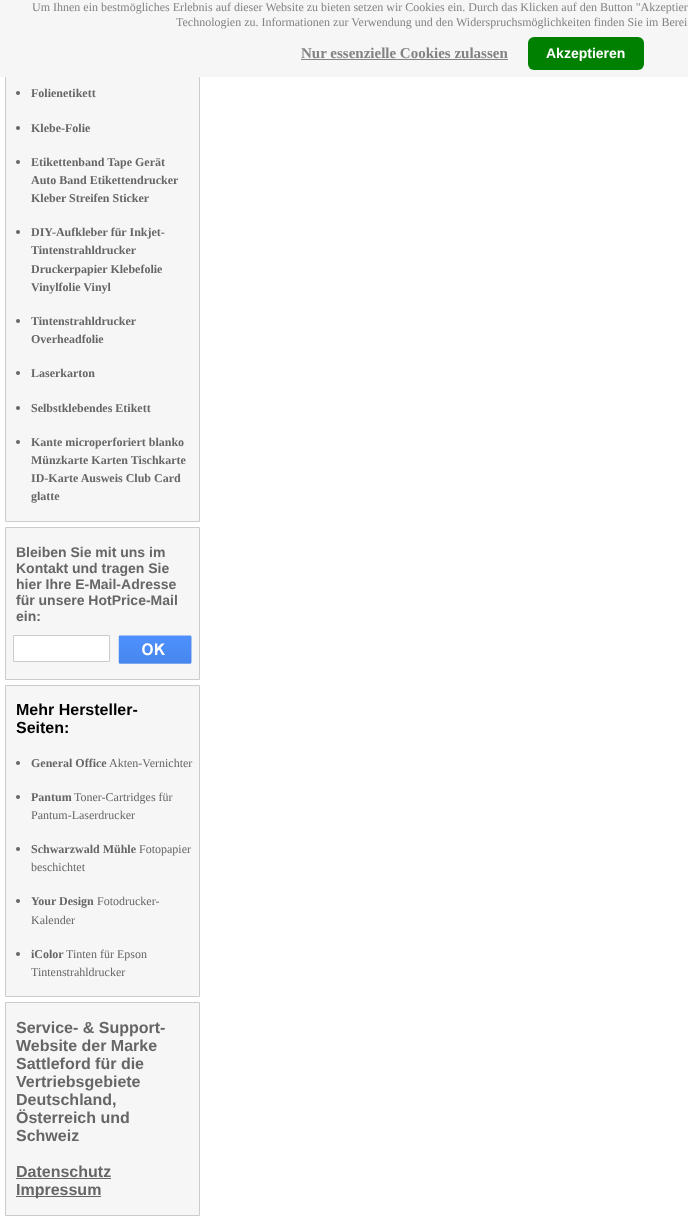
<svg xmlns="http://www.w3.org/2000/svg" width="688" height="1221">
<style>
.a{font:12px Liberation Serif;fill:#838383}
.b{font:bold 15px Liberation Serif;fill:#838383}
.c{font:bold 14px Liberation Sans;fill:#fff}
.d{font:bold 12px Liberation Serif;fill:#666}
.e{font:bold 14px Liberation Sans;fill:#666}
.f{font:bold 16px Liberation Sans;fill:#000}
.g{font:12px Liberation Serif;fill:#666}
.h{font:bold 16px Liberation Sans;fill:#666}
</style>
<rect width="100%" height="100%" fill="#fff"/>
<path fill="#f6f6f6" d="M6 77h193v444H6z"/>
<path fill="none" stroke="#ccc" d="M5.5 33.5h194v488H5.5z"/>
<path fill="#f6f6f6" d="M0 0h688v77H0z"/>
<path fill="#838383" d="M301 59h207v1H301z"/>
<rect fill="#008000" x="528" y="37" width="116" height="33" rx="6"/>
<circle fill="#666" cx="18" cy="93" r="2"/>
<circle fill="#666" cx="18" cy="128" r="2"/>
<circle fill="#666" cx="18" cy="162" r="2"/>
<circle fill="#666" cx="18" cy="232" r="2"/>
<circle fill="#666" cx="18" cy="321" r="2"/>
<circle fill="#666" cx="18" cy="373" r="2"/>
<circle fill="#666" cx="18" cy="408" r="2"/>
<circle fill="#666" cx="18" cy="442" r="2"/>
<path fill="#f6f6f6" stroke="#ccc" d="M5.5 527.5h194v152H5.5z"/>
<path fill="#fff" stroke="#ccc" d="M13.5 635.5h96v26H13.5z"/>
<image href="1.png" x="118" y="635" width="74" height="29"/>
<path fill="#f6f6f6" stroke="#ccc" d="M5.5 685.5h194v311H5.5z"/>
<circle fill="#666" cx="18" cy="763" r="2"/>
<circle fill="#666" cx="18" cy="797" r="2"/>
<circle fill="#666" cx="18" cy="849" r="2"/>
<circle fill="#666" cx="18" cy="901" r="2"/>
<circle fill="#666" cx="18" cy="954" r="2"/>
<path fill="#f6f6f6" stroke="#ccc" d="M5.5 1002.5h194v213H5.5z"/>
<path fill="#666" d="M16 1178h95v1H16z"/>
<path fill="#666" d="M16 1196h85v1H16z"/>
<text class="a" x="32" y="11">Um Ihnen ein bestmögliches Erlebnis auf dieser Website zu bieten setzen wir Cookies ein. Durch das Klicken auf den Button "Akzeptier</text>
<text class="a" x="176" y="26">Technologien zu. Informationen zur Verwendung und den Widerspruchsmöglichkeiten finden Sie im Berei</text>
<text class="b" x="301" y="58">Nur essenzielle Cookies zulassen</text>
<text class="c" x="546" y="58">Akzeptieren</text>
<text class="d" x="31" y="97">Folienetikett</text>
<text class="d" x="31" y="132">Klebe-Folie</text>
<text class="d" x="31" y="166">Etikettenband Tape Gerät</text>
<text class="d" x="31" y="184">Auto Band Etikettendrucker</text>
<text class="d" x="31" y="202">Kleber Streifen Sticker</text>
<text class="d" x="31" y="236">DIY-Aufkleber für Inkjet-</text>
<text class="d" x="31" y="254">Tintenstrahldrucker</text>
<text class="d" x="31" y="273">Druckerpapier Klebefolie</text>
<text class="d" x="31" y="291">Vinylfolie Vinyl</text>
<text class="d" x="31" y="325">Tintenstrahldrucker</text>
<text class="d" x="31" y="343">Overheadfolie</text>
<text class="d" x="31" y="377">Laserkarton</text>
<text class="d" x="31" y="412">Selbstklebendes Etikett</text>
<text class="d" x="31" y="446">Kante microperforiert blanko</text>
<text class="d" x="31" y="464">Münzkarte Karten Tischkarte</text>
<text class="d" x="31" y="482">ID-Karte Ausweis Club Card</text>
<text class="d" x="31" y="500">glatte</text>
<text class="e" x="16" y="557">Bleiben Sie mit uns im</text>
<text class="e" x="16" y="573">Kontakt und tragen Sie</text>
<text class="e" x="16" y="589">hier Ihre E-Mail-Adresse</text>
<text class="e" x="16" y="605">für unsere HotPrice-Mail</text>
<text class="e" x="16" y="621">ein:</text>
<text class="f" x="16" y="715">Mehr Hersteller-</text>
<text class="f" x="16" y="733">Seiten:</text>
<text class="d" x="31" y="767">General Office</text>
<text class="g" x="109" y="767">Akten-Vernichter</text>
<text class="d" x="31" y="801">Pantum</text>
<text class="g" x="74" y="801">Toner-Cartridges für</text>
<text class="g" x="31" y="819">Pantum-Laserdrucker</text>
<text class="d" x="31" y="853">Schwarzwald Mühle</text>
<text class="g" x="139" y="853">Fotopapier</text>
<text class="g" x="31" y="871">beschichtet</text>
<text class="d" x="31" y="905">Your Design</text>
<text class="g" x="97" y="905">Fotodrucker-</text>
<text class="g" x="31" y="924">Kalender</text>
<text class="d" x="31" y="958">iColor</text>
<text class="g" x="66" y="958">Tinten für Epson</text>
<text class="g" x="31" y="976">Tintenstrahldrucker</text>
<text class="h" x="16" y="1033">Service- &amp; Support-</text>
<text class="h" x="16" y="1051">Website der Marke</text>
<text class="h" x="16" y="1069">Sattleford für die</text>
<text class="h" x="16" y="1087">Vertriebsgebiete</text>
<text class="h" x="16" y="1105">Deutschland,</text>
<text class="h" x="16" y="1123">Österreich und</text>
<text class="h" x="16" y="1141">Schweiz</text>
<text class="h" x="16" y="1177">Datenschutz</text>
<text class="h" x="16" y="1195">Impressum</text>
</svg>
